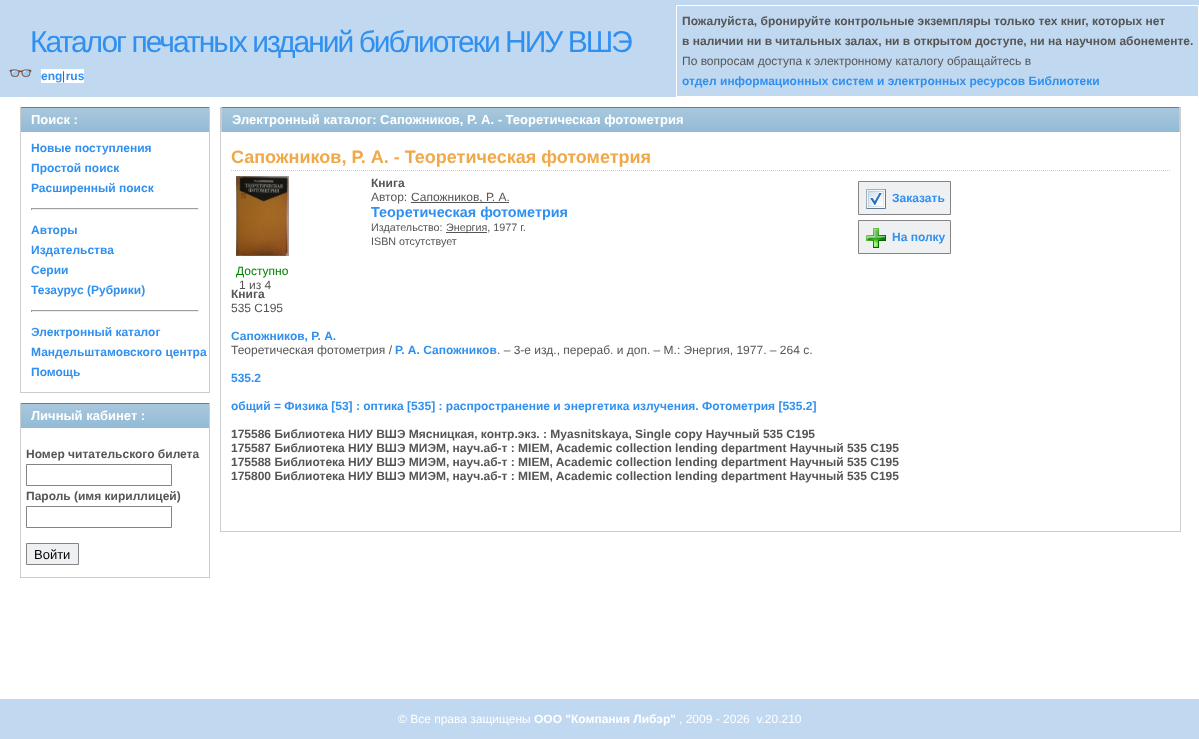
<svg xmlns="http://www.w3.org/2000/svg" width="1199" height="739">
<style>
.a{font:30px Liberation Sans;letter-spacing:-2px;fill:#3090f0}
.b{font:bold 20px Noto Color Emoji;fill:#3090f0}
.c{font:bold 12px Liberation Sans;fill:#3090f0}
.d{font:12px Liberation Sans;fill:#555}
.e{font:bold 12px Liberation Sans;fill:#555}
.f{font:bold 13px Liberation Sans;fill:#fff}
.g{font:13px Liberation Sans;fill:#000}
.h{font:bold 18px Liberation Sans;fill:#f0a848}
.i{font:bold 14.4px Liberation Sans;fill:#3090f0}
.j{font:10.75px Liberation Sans;fill:#555}
.k{font:12px Liberation Sans;fill:#008000}
.l{font:12px Liberation Sans;fill:#fff}
.m{font:bold 12px Liberation Sans;fill:#fff}
</style>
<rect width="100%" height="100%" fill="#fff"/>
<path fill="#c0d8f0" d="M0 0h1199v97H0z"/>
<path fill="#fff" d="M41 69h43v14H41z"/>
<path fill="none" stroke="#fff" d="M676.5 5.5h522v91H676.5z"/>
<image href="1.png" x="21" y="107" width="188" height="25"/>
<path fill="#ccc" d="M209 107h1v286H209z"/>
<path fill="#ccc" d="M20 107h1v25H20z"/>
<path fill="#ccc" d="M20 392h190v1H20z"/>
<path fill="#ccc" d="M20 132h1v261H20z"/>
<path fill="#9f9f9f" d="M31 208h168v1H31z"/>
<path fill="#eee" d="M198 208h1v2H198z"/>
<path fill="#eee" d="M31 209h168v1H31z"/>
<path fill="#9f9f9f" d="M31 208h1v2H31z"/>
<path fill="#9f9f9f" d="M31 310h168v1H31z"/>
<path fill="#eee" d="M198 310h1v2H198z"/>
<path fill="#eee" d="M31 311h168v1H31z"/>
<path fill="#9f9f9f" d="M31 310h1v2H31z"/>
<image href="1.png" x="21" y="403" width="188" height="25"/>
<path fill="#ccc" d="M209 403h1v175H209z"/>
<path fill="#ccc" d="M20 403h1v25H20z"/>
<path fill="#ccc" d="M20 577h190v1H20z"/>
<path fill="#ccc" d="M20 428h1v150H20z"/>
<path fill="none" stroke="#848388" d="M26.5 464.5h145v21H26.5z"/>
<path fill="none" stroke="#848388" d="M26.5 506.5h145v21H26.5z"/>
<path fill="#eef0f1" stroke="#848388" d="M26.5 543.5h52v21H26.5z"/>
<path fill="#ccc" d="M1180 107h1v425H1180z"/>
<path fill="#ccc" d="M220 531h961v1H220z"/>
<path fill="#ccc" d="M220 107h1v425H220z"/>
<image href="2.png" x="222" y="107" width="957" height="25"/>
<path fill="#ccc" d="M1179 107h1v25H1179z"/>
<path fill="#ccc" d="M221 107h1v25H221z"/>
<path fill="none" stroke="#ccc" stroke-dasharray="1 1" d="M231 170.5h939"/>
<path fill="#555" d="M411 202h98v1H411z"/>
<path fill="#555" d="M446 232h41v1H446z"/>
<path fill="#eef0f1" stroke="#848388" d="M858.5 181.5h92v33H858.5z"/>
<image href="3.png" x="866" y="189" width="20" height="20"/>
<path fill="#eef0f1" stroke="#848388" d="M858.5 220.5h92v33H858.5z"/>
<image href="4.png" x="866" y="228" width="20" height="20"/>
<image href="5.png" x="236" y="176" width="53" height="80"/>
<path fill="#c0d8f0" d="M0 699h1199v40H0z"/>
<text class="a" x="30" y="52">Каталог печатных изданий библиотеки НИУ ВШЭ</text>
<text class="b" x="8" y="80">👓</text>
<text class="c" x="41" y="80">eng rus</text>
<text class="d" x="62" y="80">|</text>
<text class="e" x="682" y="25">Пожалуйста, бронируйте контрольные экземпляры только тех книг, которых нет</text>
<text class="e" x="682" y="45">в наличии ни в читальных залах, ни в открытом доступе, ни на научном абонементе.</text>
<text class="d" x="682" y="65">По вопросам доступа к электронному каталогу обращайтесь в</text>
<text class="c" x="682" y="85">отдел информационных систем и электронных ресурсов Библиотеки</text>
<text class="f" x="31" y="124">Поиск :</text>
<text class="c" x="31" y="152">Новые поступления</text>
<text class="c" x="31" y="172">Простой поиск</text>
<text class="c" x="31" y="192">Расширенный поиск</text>
<text class="c" x="31" y="234">Авторы</text>
<text class="c" x="31" y="254">Издательства</text>
<text class="c" x="31" y="274">Серии</text>
<text class="c" x="31" y="294">Тезаурус (Рубрики)</text>
<text class="c" x="31" y="336">Электронный каталог</text>
<text class="c" x="31" y="356">Мандельштамовского центра</text>
<text class="c" x="31" y="376">Помощь</text>
<text class="f" x="31" y="420">Личный кабинет :</text>
<text class="e" x="26" y="458">Номер читательского билета</text>
<text class="e" x="26" y="500">Пароль (имя кириллицей)</text>
<text class="g" x="34" y="559">Войти</text>
<text class="f" x="232" y="124">Электронный каталог: Сапожников, Р. А. - Теоретическая фотометрия</text>
<text class="h" x="231" y="163">Сапожников, Р. А. - Теоретическая фотометрия</text>
<text class="e" x="371" y="187">Книга</text>
<text class="d" x="371" y="201">Автор:</text>
<text class="d" x="411" y="201">Сапожников, Р. А.</text>
<text class="i" x="371" y="217">Теоретическая фотометрия</text>
<text class="j" x="371" y="231">Издательство:</text>
<text class="j" x="446" y="231">Энергия, 1977 г.</text>
<text class="j" x="371" y="245">ISBN отсутствует</text>
<text class="c" x="892" y="202">Заказать</text>
<text class="c" x="892" y="241">На полку</text>
<text class="k" x="236" y="275">Доступно</text>
<text class="d" x="239" y="289">1 из 4</text>
<text class="e" x="231" y="298">Книга</text>
<text class="d" x="231" y="312">535 С195</text>
<text class="c" x="231" y="340">Сапожников, Р. А.</text>
<text class="d" x="231" y="354">Теоретическая фотометрия /</text>
<text class="c" x="395" y="354">Р. А. Сапожников</text>
<text class="d" x="497" y="354">. – 3-е изд., перераб. и доп. – М.: Энергия, 1977. – 264 с.</text>
<text class="c" x="231" y="382">535.2</text>
<text class="c" x="231" y="410">общий = Физика [53] : оптика [535] : распространение и энергетика излучения. Фотометрия [535.2]</text>
<text class="e" x="231" y="438">175586 Библиотека НИУ ВШЭ Мясницкая, контр.экз. : Myasnitskaya, Single copy Научный 535 С195</text>
<text class="e" x="231" y="452">175587 Библиотека НИУ ВШЭ МИЭМ, науч.аб-т : MIEM, Academic collection lending department Научный 535 С195</text>
<text class="e" x="231" y="466">175588 Библиотека НИУ ВШЭ МИЭМ, науч.аб-т : MIEM, Academic collection lending department Научный 535 С195</text>
<text class="e" x="231" y="480">175800 Библиотека НИУ ВШЭ МИЭМ, науч.аб-т : MIEM, Academic collection lending department Научный 535 С195</text>
<text class="l" x="398" y="723">© Все права защищены</text>
<text class="m" x="534" y="723">ООО "Компания Либэр"</text>
<text class="l" xml:space="preserve" x="679" y="723">, 2009 - 2026  v.20.210</text>
</svg>
